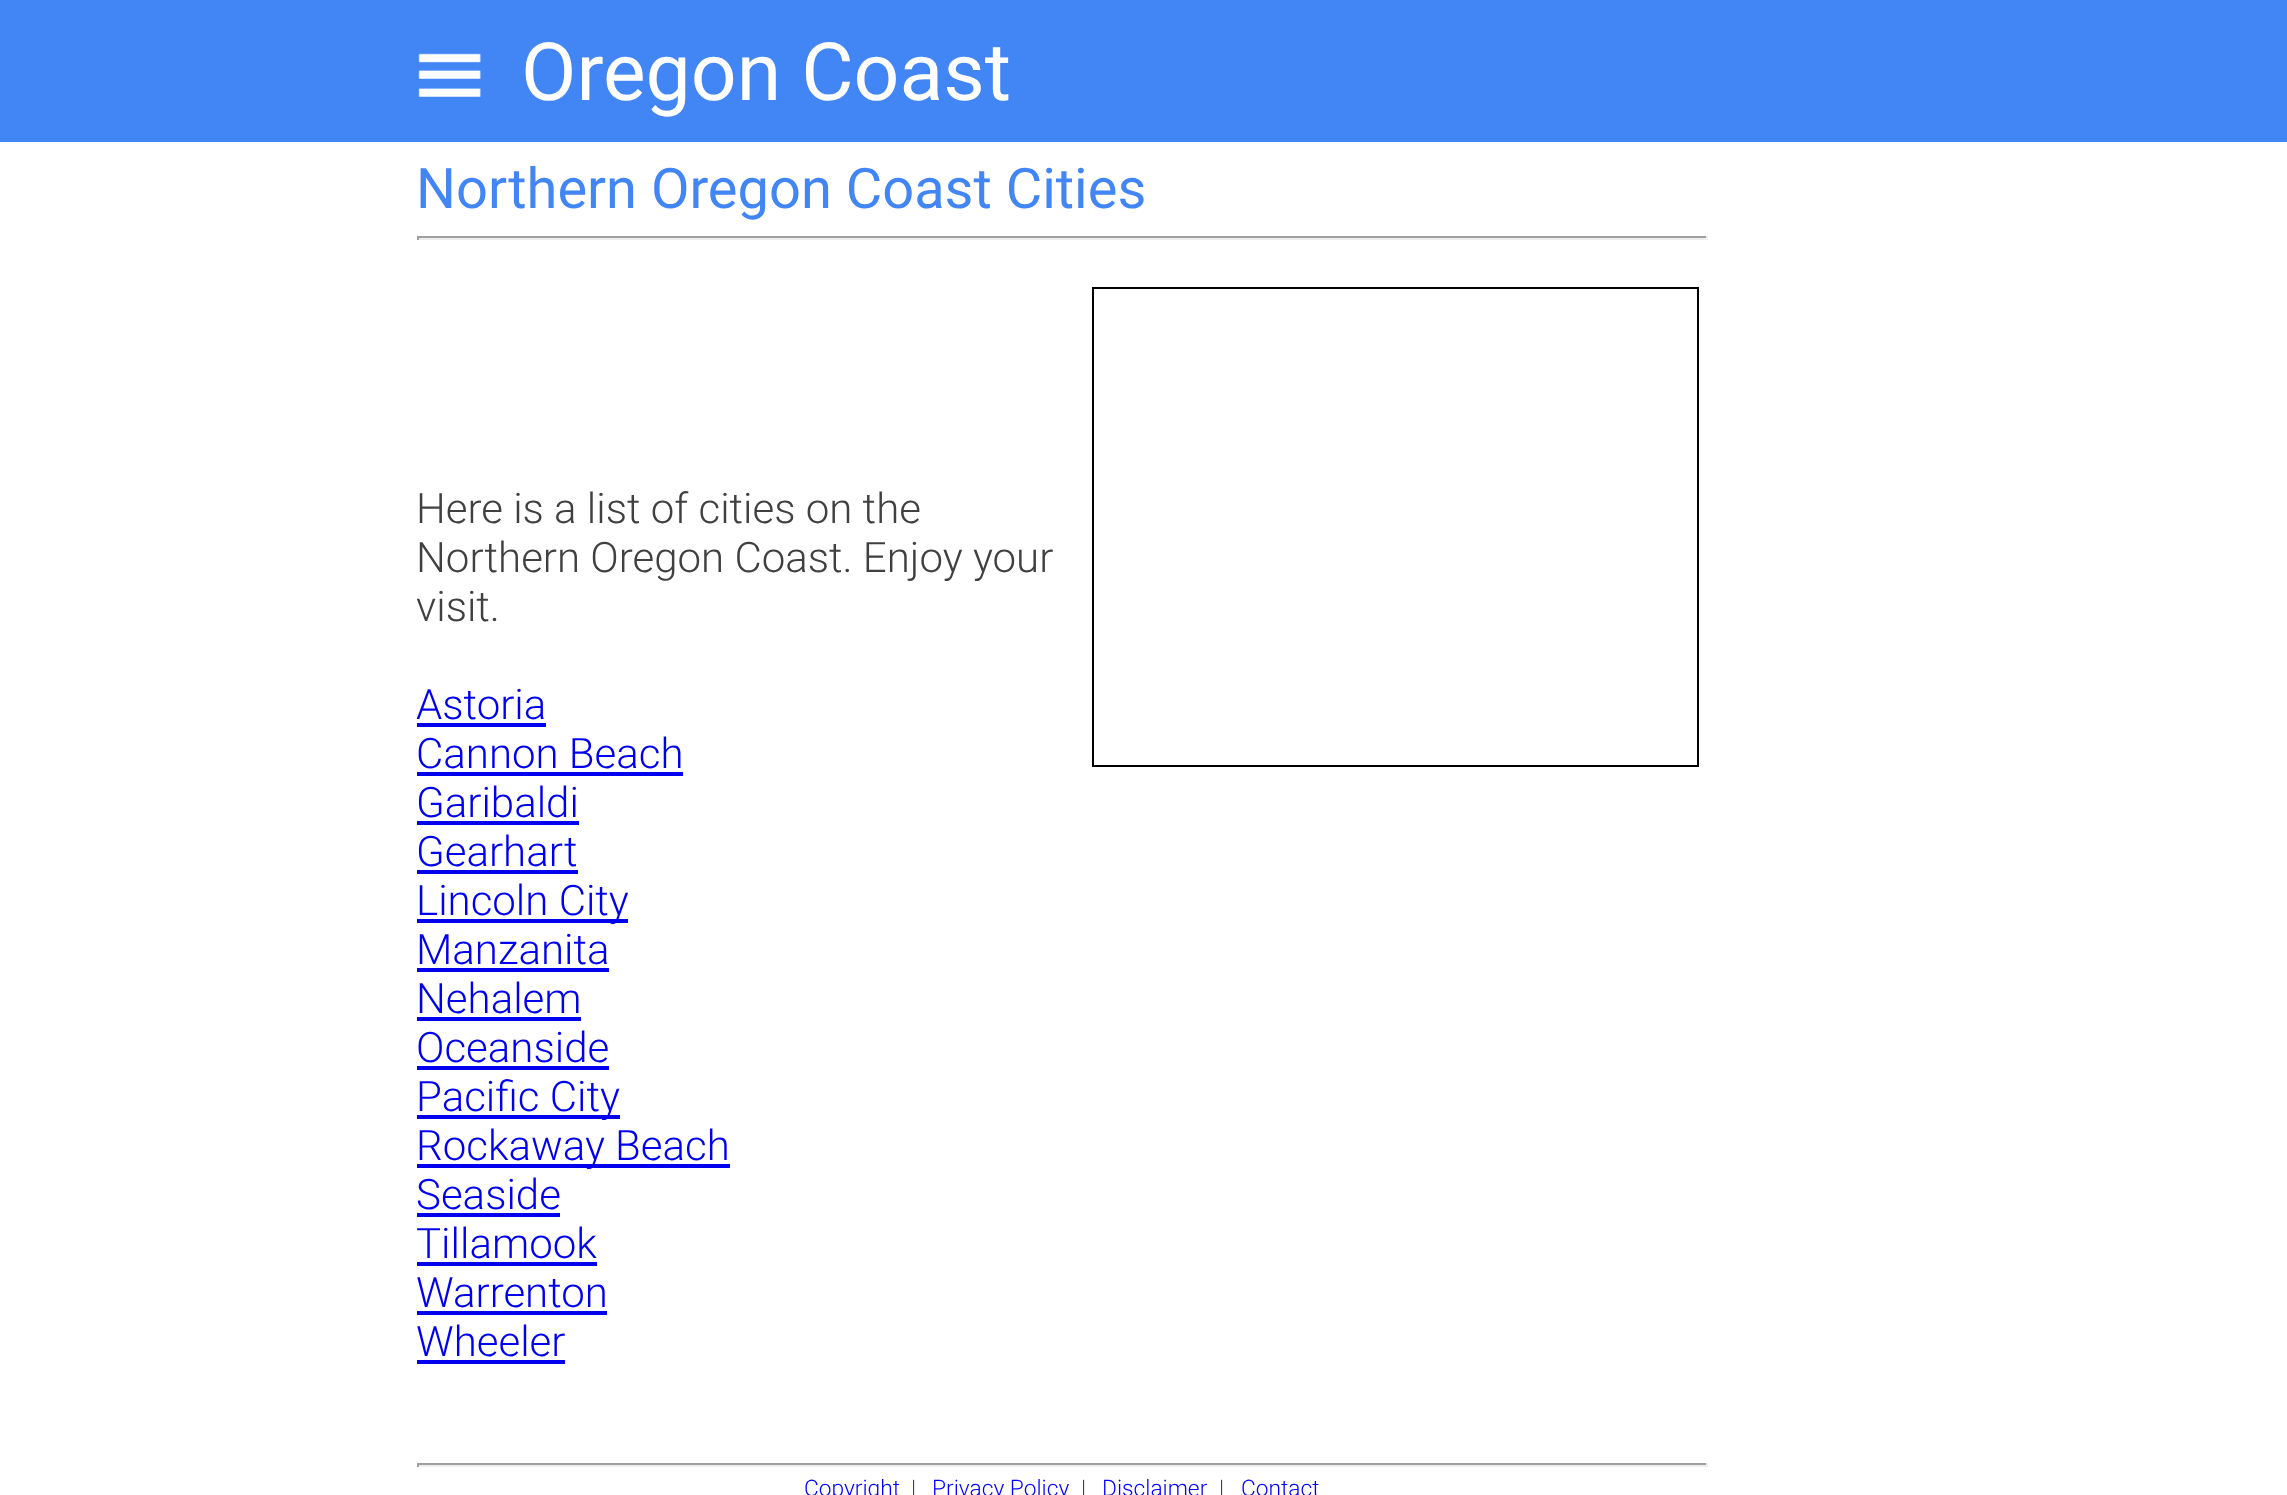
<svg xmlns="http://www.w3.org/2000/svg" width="2287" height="1495">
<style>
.a{font:80.5px Roboto;fill:#fefefe}
.b{font:56px Roboto;fill:#4285f4}
.c{font:300 42px Roboto;fill:#404040}
.d{font:300 42px Roboto;fill:#00e}
.e{font:300 22.75px Roboto;fill:#00f}
.f{font:300 22.75px Roboto;fill:#404040}
</style>
<rect width="100%" height="100%" fill="#fff"/>
<path fill="#4285f4" d="M0 0h2287v142H0z"/>
<image href="1.png" x="418" y="53" width="63" height="44"/>
<path fill="#9f9f9f" d="M417 236h1291v2H417z"/>
<path fill="#eee" d="M1706 236h2v4H1706z"/>
<path fill="#eee" d="M417 238h1291v2H417z"/>
<path fill="#9f9f9f" d="M417 236h2v4H417z"/>
<path fill="#00e" d="M417 723h129v4H417z"/>
<path fill="#00e" d="M417 772h266v4H417z"/>
<path fill="#00e" d="M417 821h162v4H417z"/>
<path fill="#00e" d="M417 870h161v4H417z"/>
<path fill="#00e" d="M417 919h211v4H417z"/>
<path fill="#00e" d="M417 968h192v4H417z"/>
<path fill="#00e" d="M417 1017h164v4H417z"/>
<path fill="#00e" d="M417 1066h192v4H417z"/>
<path fill="#00e" d="M417 1115h203v4H417z"/>
<path fill="#00e" d="M417 1164h313v4H417z"/>
<path fill="#00e" d="M417 1213h143v4H417z"/>
<path fill="#00e" d="M417 1262h180v4H417z"/>
<path fill="#00e" d="M417 1311h190v4H417z"/>
<path fill="#00e" d="M417 1360h148v4H417z"/>
<path fill="none" stroke="#000" stroke-width="2" d="M1093 288h605v478H1093z"/>
<path fill="#9f9f9f" d="M417 1463h1291v2H417z"/>
<path fill="#eee" d="M1706 1463h2v4H1706z"/>
<path fill="#eee" d="M417 1465h1291v2H417z"/>
<path fill="#9f9f9f" d="M417 1463h2v4H417z"/>
<text class="a" x="521" y="100">Oregon Coast</text>
<text class="b" x="416" y="208">Northern Oregon Coast Cities</text>
<text class="c" x="416" y="523">Here is a list of cities on the</text>
<text class="c" x="416" y="572">Northern Oregon Coast. Enjoy your</text>
<text class="c" x="416" y="621">visit.</text>
<text class="d" x="416" y="719">Astoria</text>
<text class="d" x="416" y="768">Cannon Beach</text>
<text class="d" x="416" y="817">Garibaldi</text>
<text class="d" x="416" y="866">Gearhart</text>
<text class="d" x="416" y="915">Lincoln City</text>
<text class="d" x="416" y="964">Manzanita</text>
<text class="d" x="416" y="1013">Nehalem</text>
<text class="d" x="416" y="1062">Oceanside</text>
<text class="d" x="416" y="1111">Pacific City</text>
<text class="d" x="416" y="1160">Rockaway Beach</text>
<text class="d" x="416" y="1209">Seaside</text>
<text class="d" x="416" y="1258">Tillamook</text>
<text class="d" x="416" y="1307">Warrenton</text>
<text class="d" x="416" y="1356">Wheeler</text>
<text class="e" x="804" y="1496">Copyright</text>
<text class="f" x="911" y="1496">|</text>
<text class="e" x="932" y="1496">Privacy Policy</text>
<text class="f" x="1081" y="1496">|</text>
<text class="e" x="1102" y="1496">Disclaimer</text>
<text class="f" x="1219" y="1496">|</text>
<text class="e" x="1241" y="1496">Contact</text>
</svg>
